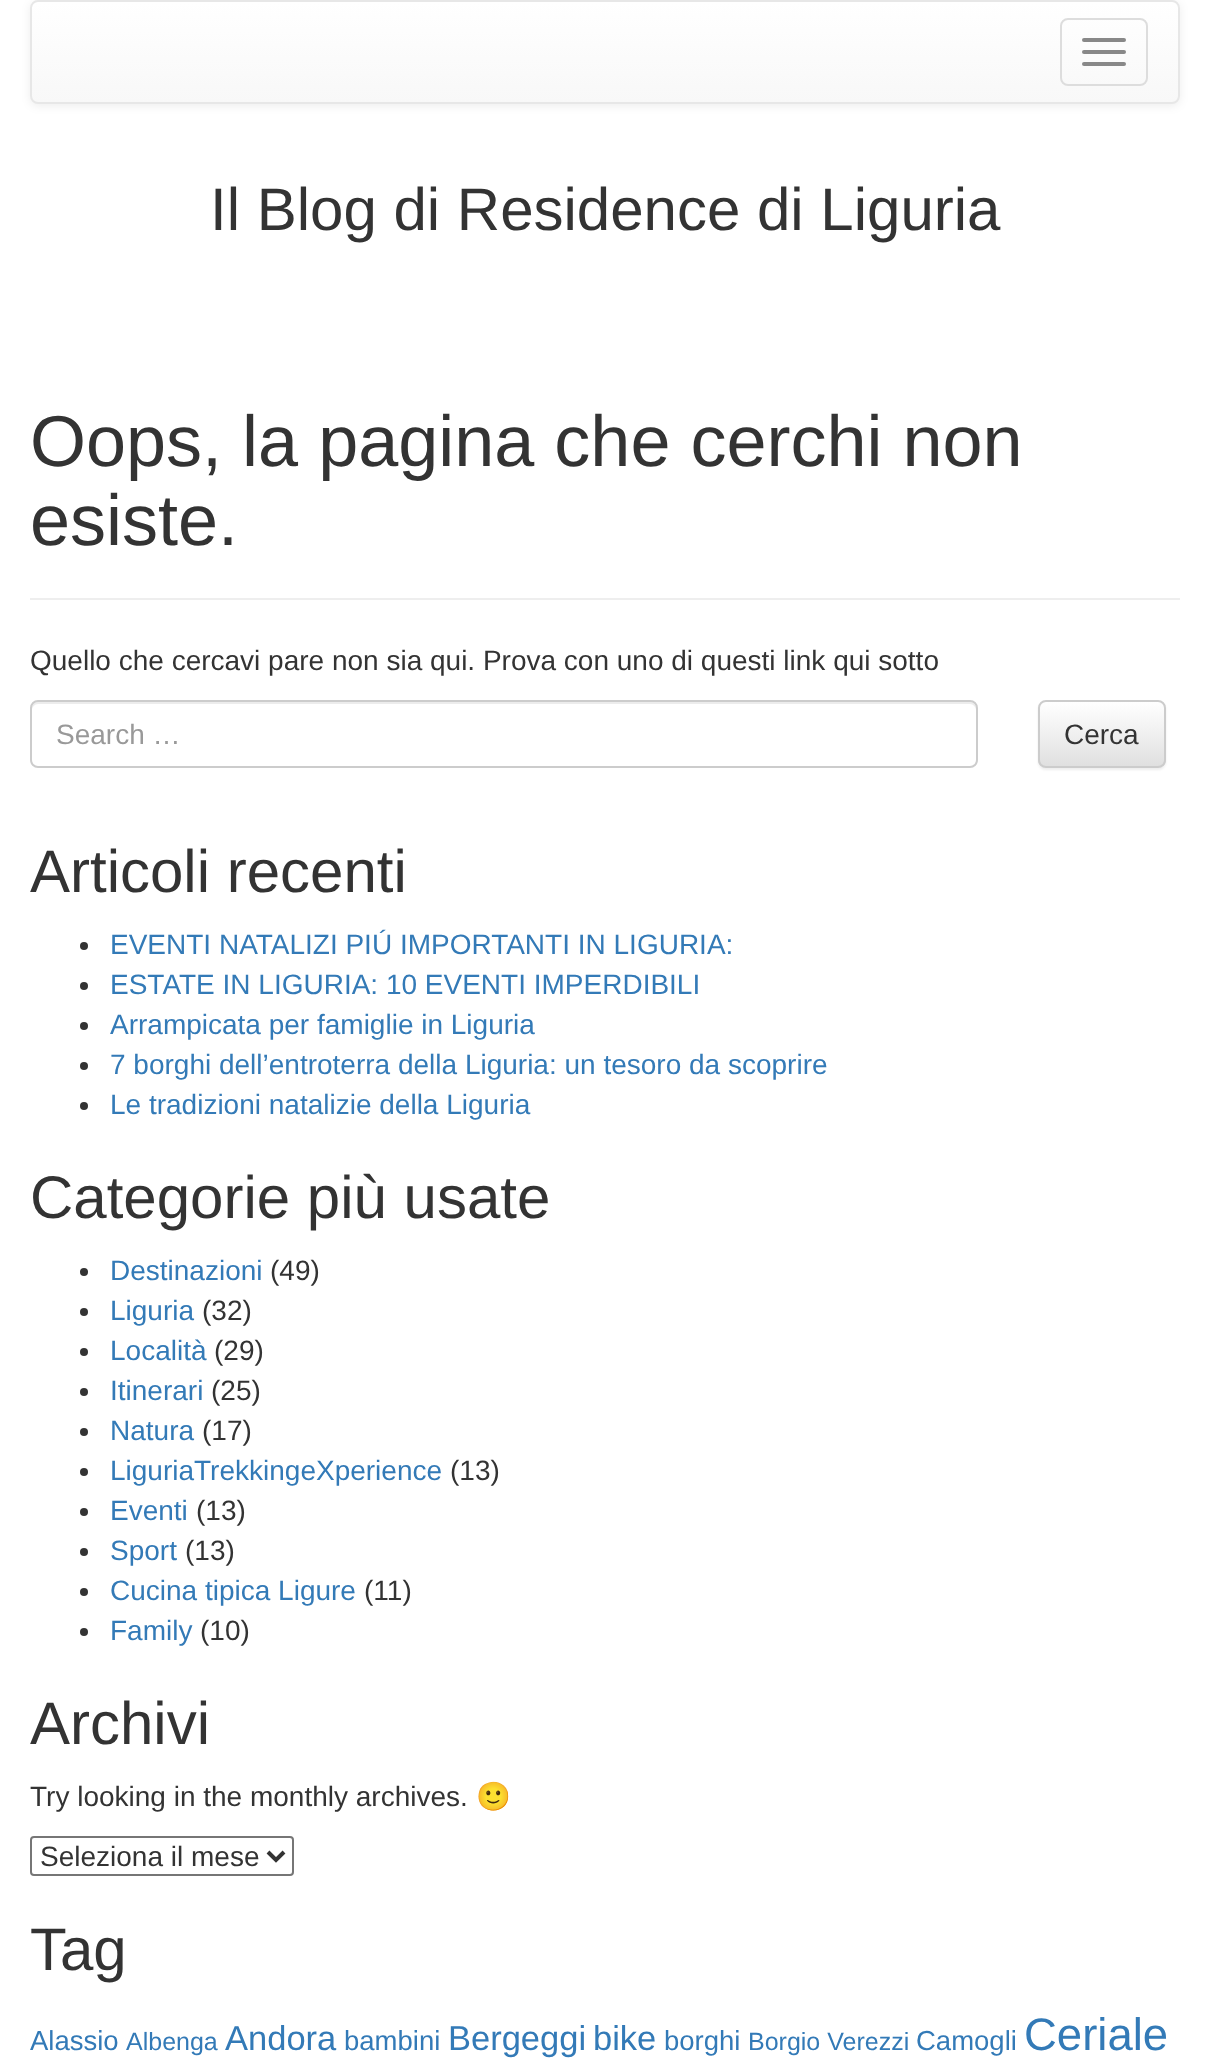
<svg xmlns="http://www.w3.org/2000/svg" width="1209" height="2068">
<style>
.a{font:60px Liberation Sans;fill:#333}
.b{font:72px Liberation Sans;fill:#333}
.c{font:28px Liberation Sans;fill:#333}
.d{font:28px Liberation Sans;fill:#999}
.e{font:28px Liberation Sans;fill:#337ab7}
.f{font:28px Noto Color Emoji;fill:#333}
.g{font:27.5px Liberation Sans;fill:#337ab7}
.h{font:25px Liberation Sans;fill:#337ab7}
.i{font:34.5px Liberation Sans;fill:#337ab7}
.j{font:45.5px Liberation Sans;fill:#337ab7}
</style>
<defs>
<clipPath id="clip1"><rect x="30" width="1150" height="104" rx="8"/></clipPath>
<linearGradient id="g1" gradientUnits="userSpaceOnUse" x1="605" y1="2" x2="605" y2="102"><stop offset="0" stop-color="#fff"/><stop offset="1" stop-color="#f8f8f8"/></linearGradient>
<clipPath id="clip2"><rect x="1038" y="700" width="128" height="68" rx="8"/></clipPath>
<linearGradient id="g2" gradientUnits="userSpaceOnUse" x1="1102" y1="702" x2="1102" y2="766"><stop offset="0" stop-color="#fff"/><stop offset="1" stop-color="#e0e0e0"/></linearGradient>
</defs>
<rect width="100%" height="100%" fill="#fff"/>
<rect fill="#00000012" filter="blur(5px)" x="30" y="2" width="1150" height="104" rx="8"/>
<g clip-path="url(#clip1)">
<path fill="url(#g1)" d="M30 2h1150v100H30z"/>
</g>
<rect fill="none" stroke="#e7e7e7" stroke-width="2" x="31" y="1" width="1148" height="102" rx="7"/>
<rect fill="none" stroke="#ddd" stroke-width="2" x="1061" y="19" width="86" height="66" rx="7"/>
<rect fill="#888" x="1082" y="38" width="44" height="4" rx="2"/>
<rect fill="#888" x="1082" y="50" width="44" height="4" rx="2"/>
<rect fill="#888" x="1082" y="62" width="44" height="4" rx="2"/>
<path fill="#eee" d="M30 598h1150v2H30z"/>
<path fill="#ececec" d="M38 704h932c3 0 6 3 6 6v-2c0-3-3-6-6-6h-932c-3 0-6 3-6 6v2c0-3 3-6 6-6z"/>
<rect fill="none" stroke="#ccc" stroke-width="2" x="31" y="701" width="946" height="66" rx="7"/>
<rect fill="#00000012" filter="blur(1px)" x="1038" y="702" width="128" height="68" rx="8"/>
<g clip-path="url(#clip2)">
<path fill="url(#g2)" d="M1038 702h128v64H1038z"/>
</g>
<rect fill="none" stroke="#ccc" stroke-width="2" x="1039" y="701" width="126" height="66" rx="7"/>
<circle fill="#333" cx="84" cy="946" r="4"/>
<circle fill="#333" cx="84" cy="986" r="4"/>
<circle fill="#333" cx="84" cy="1026" r="4"/>
<circle fill="#333" cx="84" cy="1066" r="4"/>
<circle fill="#333" cx="84" cy="1106" r="4"/>
<circle fill="#333" cx="84" cy="1272" r="4"/>
<circle fill="#333" cx="84" cy="1312" r="4"/>
<circle fill="#333" cx="84" cy="1352" r="4"/>
<circle fill="#333" cx="84" cy="1392" r="4"/>
<circle fill="#333" cx="84" cy="1432" r="4"/>
<circle fill="#333" cx="84" cy="1472" r="4"/>
<circle fill="#333" cx="84" cy="1512" r="4"/>
<circle fill="#333" cx="84" cy="1552" r="4"/>
<circle fill="#333" cx="84" cy="1592" r="4"/>
<circle fill="#333" cx="84" cy="1632" r="4"/>
<rect fill="none" stroke="#767676" stroke-width="2" x="31" y="1837" width="262" height="38" rx="3"/>
<path fill="none" stroke="#333" stroke-width="4" d="M268 1852l8 8l8-8"/>
<text class="a" x="210" y="230">Il Blog di Residence di Liguria</text>
<text class="b" x="30" y="466">Oops, la pagina che cerchi non</text>
<text class="b" x="30" y="545">esiste.</text>
<text class="c" x="30" y="670">Quello che cercavi pare non sia qui. Prova con uno di questi link qui sotto</text>
<text class="d" x="56" y="744">Search …</text>
<text class="c" x="1064" y="744">Cerca</text>
<text class="a" x="30" y="892">Articoli recenti</text>
<text class="e" x="110" y="954">EVENTI NATALIZI PIÚ IMPORTANTI IN LIGURIA:</text>
<text class="e" x="110" y="994">ESTATE IN LIGURIA: 10 EVENTI IMPERDIBILI</text>
<text class="e" x="110" y="1034">Arrampicata per famiglie in Liguria</text>
<text class="e" x="110" y="1074">7 borghi dell’entroterra della Liguria: un tesoro da scoprire</text>
<text class="e" x="110" y="1114">Le tradizioni natalizie della Liguria</text>
<text class="a" x="30" y="1218">Categorie più usate</text>
<text class="e" x="110" y="1280">Destinazioni</text>
<text class="c" x="270" y="1280">(49)</text>
<text class="e" x="110" y="1320">Liguria</text>
<text class="c" x="202" y="1320">(32)</text>
<text class="e" x="110" y="1360">Località</text>
<text class="c" x="214" y="1360">(29)</text>
<text class="e" x="110" y="1400">Itinerari</text>
<text class="c" x="211" y="1400">(25)</text>
<text class="e" x="110" y="1440">Natura</text>
<text class="c" x="202" y="1440">(17)</text>
<text class="e" x="110" y="1480">LiguriaTrekkingeXperience</text>
<text class="c" x="450" y="1480">(13)</text>
<text class="e" x="110" y="1520">Eventi</text>
<text class="c" x="196" y="1520">(13)</text>
<text class="e" x="110" y="1560">Sport</text>
<text class="c" x="185" y="1560">(13)</text>
<text class="e" x="110" y="1600">Cucina tipica Ligure</text>
<text class="c" x="364" y="1600">(11)</text>
<text class="e" x="110" y="1640">Family</text>
<text class="c" x="200" y="1640">(10)</text>
<text class="a" x="30" y="1744">Archivi</text>
<text class="c" x="30" y="1806">Try looking in the monthly archives.</text>
<text class="f" x="476" y="1806">🙂</text>
<text class="c" x="40" y="1866">Seleziona il mese</text>
<text class="a" x="30" y="1970">Tag</text>
<text class="g" x="30" y="2050">Alassio</text>
<text class="h" x="126" y="2050">Albenga</text>
<text class="i" x="225" y="2050">Andora</text>
<text class="g" x="344" y="2050">bambini</text>
<text class="i" x="448" y="2050">Bergeggi</text>
<text class="i" x="593" y="2050">bike</text>
<text class="g" x="664" y="2050">borghi</text>
<text class="h" x="748" y="2050">Borgio Verezzi</text>
<text class="g" x="916" y="2050">Camogli</text>
<text class="j" x="1024" y="2050">Ceriale</text>
</svg>
